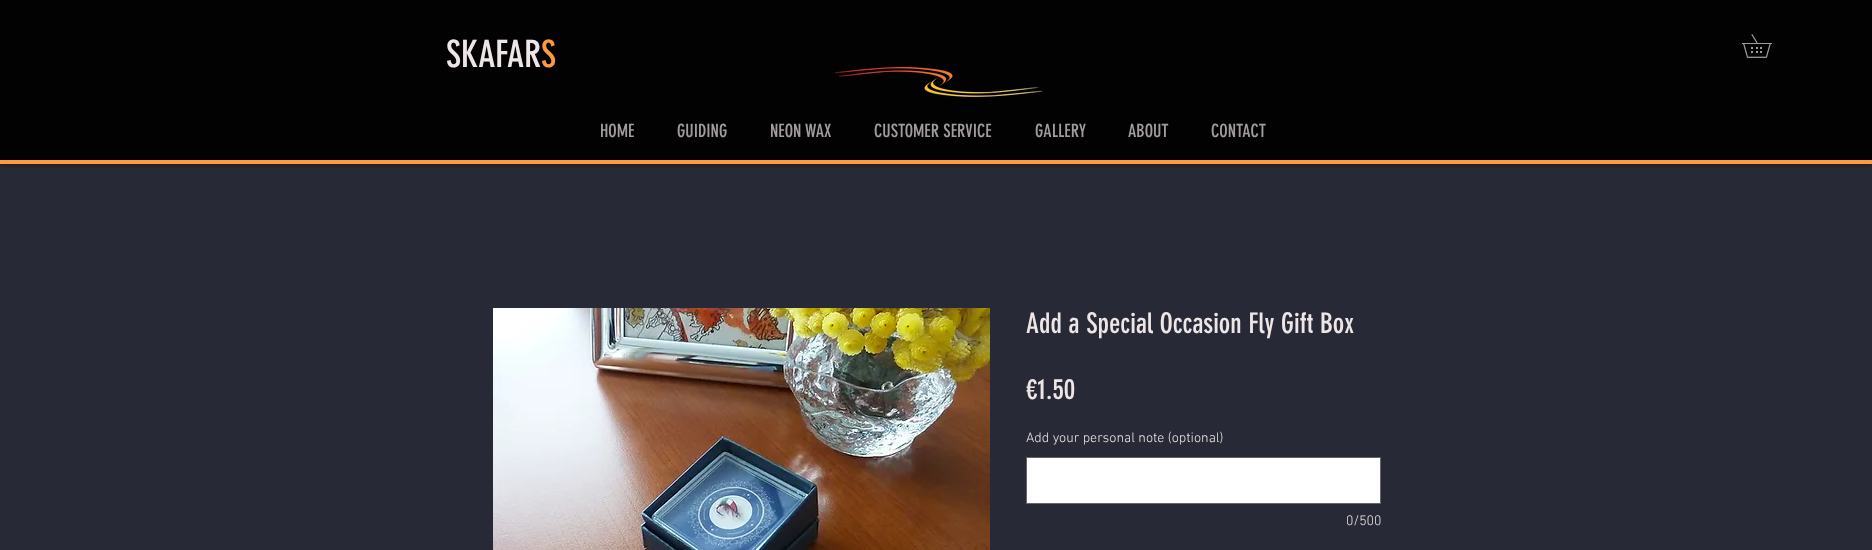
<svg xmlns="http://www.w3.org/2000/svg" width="1872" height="550">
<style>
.a{font:37px 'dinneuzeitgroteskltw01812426';fill:#eee6e6}
.b{font:37px 'dinneuzeitgroteskltw01812426';fill:#ff9940}
.c{font:18px 'dinneuzeitgroteskltw01812426';fill:#a29c9c}
.d{font:28px 'dinneuzeitgroteskltw01812426';fill:#eee6e6}
.e{font:300 14px 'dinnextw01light';fill:#eee6e6}
</style>
<defs>
<clipPath id="clip1"><path d="M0 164h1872v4H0z"/></clipPath>
</defs>
<rect width="100%" height="100%" fill="#020202"/>
<path fill="#272936" d="M0 164h1872v386H0z"/>
<g clip-path="url(#clip1)">
<path fill="#00000080" filter="blur(2.5px)" d="M0 0h1872v164H0z"/>
</g>
<path fill="#ff9940" d="M0 160h1872v4H0z"/>
<image href="1.png" x="835" y="67" width="207" height="30"/>
<image href="2.png" x="1742" y="34" width="30" height="24"/>
<image href="3.png" x="493" y="308" width="497" height="242"/>
<path fill="#fff" stroke="#666" d="M1026.5 457.5h354v46H1026.5z"/>
<text class="a" x="446" y="67">SKAFAR</text>
<text class="b" x="541" y="67">S</text>
<text class="c" x="600" y="137">HOME</text>
<text class="c" x="677" y="137">GUIDING</text>
<text class="c" x="770" y="137">NEON WAX</text>
<text class="c" x="874" y="137">CUSTOMER SERVICE</text>
<text class="c" x="1035" y="137">GALLERY</text>
<text class="c" x="1128" y="137">ABOUT</text>
<text class="c" x="1211" y="137">CONTACT</text>
<text class="d" x="1026" y="333">Add a Special Occasion Fly Gift Box</text>
<text class="d" x="1026" y="399">€1.50</text>
<text class="e" x="1026" y="442">Add your personal note (optional)</text>
<text class="e" x="1346" y="525">0/500</text>
</svg>
